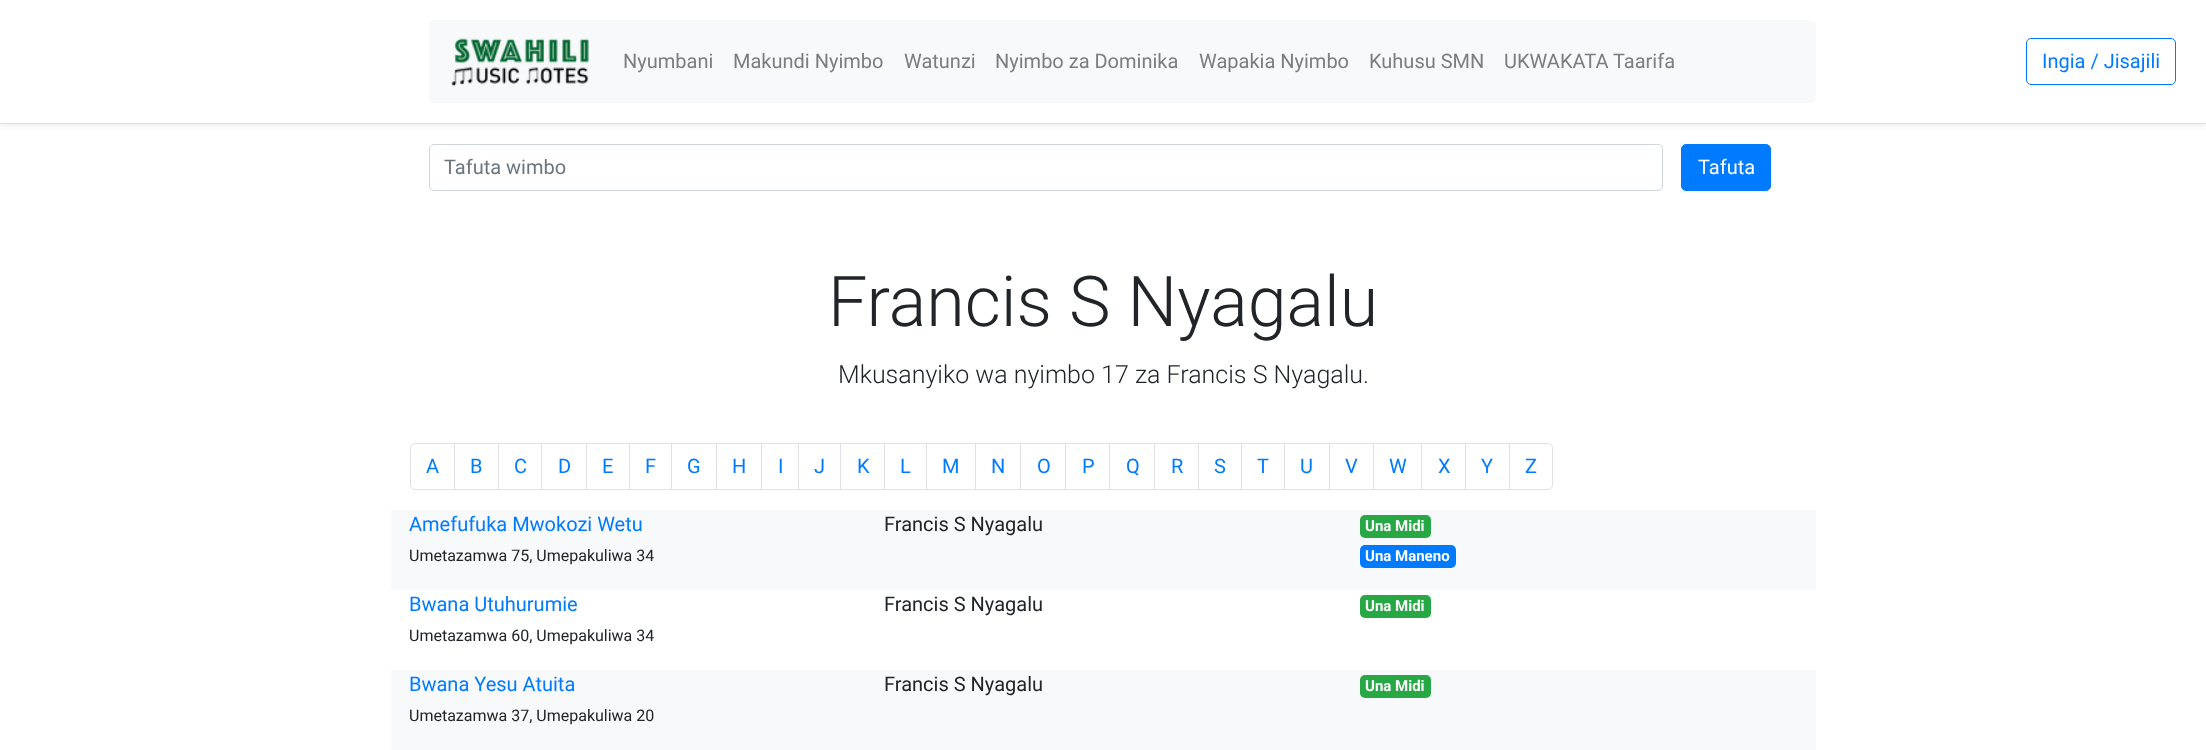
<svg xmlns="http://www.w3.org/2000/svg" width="2206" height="750">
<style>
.a{font:20px Roboto;fill:#7c7d7d}
.b{font:20px Roboto;fill:#007bff}
.c{font:20px Roboto;fill:#6c757d}
.d{font:20px Roboto;fill:#fff}
.e{font:300 70px Roboto;fill:#212529}
.f{font:300 25px Roboto;fill:#212529}
.g{font:16px Roboto;fill:#212529}
.h{font:20px Roboto;fill:#212529}
.i{font:bold 15px Roboto;fill:#fff}
</style>
<rect width="100%" height="100%" fill="#fff"/>
<path fill="#00000012" filter="blur(2.5px)" d="M0 3h2206v123H0z"/>
<path fill="#fff" d="M0 0h2206v123H0z"/>
<path fill="#dee2e6" d="M0 123h2206v1H0z"/>
<rect fill="#f8f9fa" x="429" y="20" width="1387" height="83" rx="5"/>
<image href="1.png" x="451" y="38" width="138" height="49"/>
<rect fill="none" stroke="#007bff" x="2026.5" y="38.5" width="149" height="46" rx="4.5"/>
<rect fill="none" stroke="#ced4da" x="429.5" y="144.5" width="1233" height="46" rx="4.5"/>
<rect fill="#007bff" stroke="#007bff" x="1681.5" y="144.5" width="89" height="46" rx="4.5"/>
<path fill="none" stroke="#dee2e6" d="M415 443.5h39.5v46h-39.5c-2.5 0-4.5-2-4.5-4.5v-37c0-2.5 2-4.5 4.5-4.5z"/>
<path fill="none" stroke="#dee2e6" d="M454.5 443.5h44v46H454.5z"/>
<path fill="none" stroke="#dee2e6" d="M498.5 443.5h44v46H498.5z"/>
<path fill="#fff" d="M542 444h1v45H542z"/>
<path fill="none" stroke="#dee2e6" d="M541.5 443.5h46v46H541.5z"/>
<path fill="#fff" d="M587 444h1v45H587z"/>
<path fill="none" stroke="#dee2e6" d="M586.5 443.5h43v46H586.5z"/>
<path fill="none" stroke="#dee2e6" d="M629.5 443.5h43v46H629.5z"/>
<path fill="#fff" d="M672 444h1v45H672z"/>
<path fill="none" stroke="#dee2e6" d="M671.5 443.5h46v46H671.5z"/>
<path fill="#fff" d="M717 444h1v45H717z"/>
<path fill="none" stroke="#dee2e6" d="M716.5 443.5h46v46H716.5z"/>
<path fill="#fff" d="M762 444h1v45H762z"/>
<path fill="none" stroke="#dee2e6" d="M761.5 443.5h37v46H761.5z"/>
<path fill="none" stroke="#dee2e6" d="M798.5 443.5h42v46H798.5z"/>
<path fill="none" stroke="#dee2e6" d="M840.5 443.5h44v46H840.5z"/>
<path fill="none" stroke="#dee2e6" d="M884.5 443.5h43v46H884.5z"/>
<path fill="#fff" d="M927 444h1v45H927z"/>
<path fill="none" stroke="#dee2e6" d="M926.5 443.5h49v46H926.5z"/>
<path fill="none" stroke="#dee2e6" d="M975.5 443.5h45v46H975.5z"/>
<path fill="none" stroke="#dee2e6" d="M1020.5 443.5h45v46H1020.5z"/>
<path fill="none" stroke="#dee2e6" d="M1065.5 443.5h44v46H1065.5z"/>
<path fill="none" stroke="#dee2e6" d="M1109.5 443.5h45v46H1109.5z"/>
<path fill="none" stroke="#dee2e6" d="M1154.5 443.5h44v46H1154.5z"/>
<path fill="none" stroke="#dee2e6" d="M1198.5 443.5h44v46H1198.5z"/>
<path fill="#fff" d="M1242 444h1v45H1242z"/>
<path fill="none" stroke="#dee2e6" d="M1241.5 443.5h43v46H1241.5z"/>
<path fill="none" stroke="#dee2e6" d="M1284.5 443.5h45v46H1284.5z"/>
<path fill="none" stroke="#dee2e6" d="M1329.5 443.5h44v46H1329.5z"/>
<path fill="none" stroke="#dee2e6" d="M1373.5 443.5h49v46H1373.5z"/>
<path fill="#fff" d="M1422 444h1v45H1422z"/>
<path fill="none" stroke="#dee2e6" d="M1421.5 443.5h44v46H1421.5z"/>
<path fill="none" stroke="#dee2e6" d="M1465.5 443.5h44v46H1465.5z"/>
<path fill="#fff" stroke="#dee2e6" d="M1509.5 443.5h38.5c2.5 0 4.5 2 4.5 4.5v37c0 2.5-2 4.5-4.5 4.5h-38.5z"/>
<path fill="#f8f9fa" d="M391 510h1425v80H391z"/>
<rect fill="#28a745" x="1360" y="515" width="71" height="23" rx="5"/>
<rect fill="#007bff" x="1360" y="545" width="96" height="23" rx="5"/>
<rect fill="#28a745" x="1360" y="595" width="71" height="23" rx="5"/>
<path fill="#f8f9fa" d="M391 670h1425v80H391z"/>
<rect fill="#28a745" x="1360" y="675" width="71" height="23" rx="5"/>
<text class="a" x="623" y="68">Nyumbani</text>
<text class="a" x="733" y="68">Makundi Nyimbo</text>
<text class="a" x="904" y="68">Watunzi</text>
<text class="a" x="995" y="68">Nyimbo za Dominika</text>
<text class="a" x="1199" y="68">Wapakia Nyimbo</text>
<text class="a" x="1369" y="68">Kuhusu SMN</text>
<text class="a" x="1504" y="68">UKWAKATA Taarifa</text>
<text class="b" x="2042" y="68">Ingia / Jisajili</text>
<text class="c" x="444" y="174">Tafuta wimbo</text>
<text class="d" x="1698" y="174">Tafuta</text>
<text class="e" x="828" y="326">Francis S Nyagalu</text>
<text class="f" x="838" y="383">Mkusanyiko wa nyimbo 17 za Francis S Nyagalu.</text>
<text class="b" x="426" y="473">A</text>
<text class="b" x="470" y="473">B</text>
<text class="b" x="514" y="473">C</text>
<text class="b" x="558" y="473">D</text>
<text class="b" x="602" y="473">E</text>
<text class="b" x="645" y="473">F</text>
<text class="b" x="687" y="473">G</text>
<text class="b" x="732" y="473">H</text>
<text class="b" x="778" y="473">I</text>
<text class="b" x="814" y="473">J</text>
<text class="b" x="857" y="473">K</text>
<text class="b" x="900" y="473">L</text>
<text class="b" x="942" y="473">M</text>
<text class="b" x="991" y="473">N</text>
<text class="b" x="1037" y="473">O</text>
<text class="b" x="1082" y="473">P</text>
<text class="b" x="1126" y="473">Q</text>
<text class="b" x="1171" y="473">R</text>
<text class="b" x="1214" y="473">S</text>
<text class="b" x="1257" y="473">T</text>
<text class="b" x="1300" y="473">U</text>
<text class="b" x="1345" y="473">V</text>
<text class="b" x="1389" y="473">W</text>
<text class="b" x="1438" y="473">X</text>
<text class="b" x="1481" y="473">Y</text>
<text class="b" x="1525" y="473">Z</text>
<text class="b" x="409" y="531">Amefufuka Mwokozi Wetu</text>
<text class="g" x="409" y="561">Umetazamwa 75, Umepakuliwa 34</text>
<text class="h" x="884" y="531">Francis S Nyagalu</text>
<text class="i" x="1365" y="531">Una Midi</text>
<text class="i" x="1365" y="561">Una Maneno</text>
<text class="b" x="409" y="611">Bwana Utuhurumie</text>
<text class="g" x="409" y="641">Umetazamwa 60, Umepakuliwa 34</text>
<text class="h" x="884" y="611">Francis S Nyagalu</text>
<text class="i" x="1365" y="611">Una Midi</text>
<text class="b" x="409" y="691">Bwana Yesu Atuita</text>
<text class="g" x="409" y="721">Umetazamwa 37, Umepakuliwa 20</text>
<text class="h" x="884" y="691">Francis S Nyagalu</text>
<text class="i" x="1365" y="691">Una Midi</text>
</svg>
